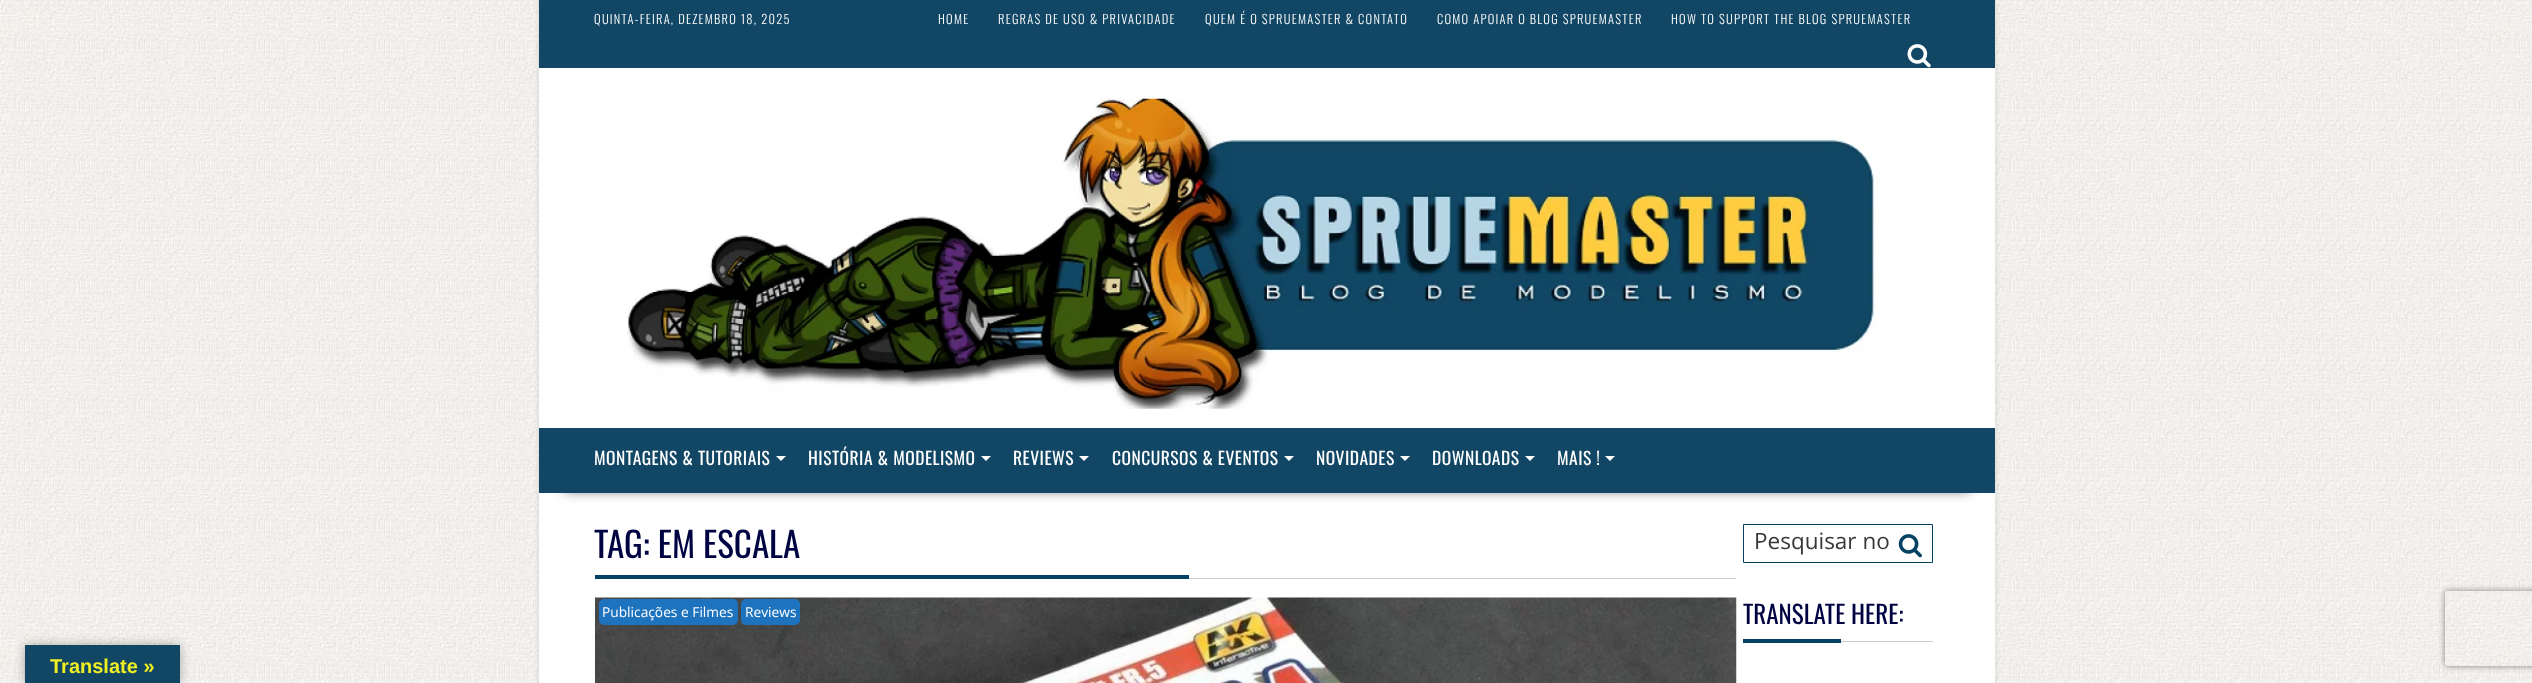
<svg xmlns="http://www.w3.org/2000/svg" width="2532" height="683">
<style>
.a{font:bold 20px Liberation Sans;fill:#ee2}
.b{font:300 12.5px Oswald;letter-spacing:1.25px;fill:#fff}
.c{font:17.5px Oswald;letter-spacing:0.5px;fill:#fff}
.d{font:35px Oswald;fill:#000342}
.e{font:13.75px Open Sans;fill:#fff}
.f{font:22.5px Open Sans;fill:#383838}
.g{font:25px Oswald;fill:#000342}
</style>
<defs>
<clipPath id="clip1"><path d="M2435 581h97v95h-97zm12.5 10h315c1.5 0 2.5 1 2.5 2.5v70c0 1.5-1 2.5-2.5 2.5h-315c-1.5 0-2.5-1-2.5-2.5v-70c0-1.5 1-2.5 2.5-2.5z" clip-rule="evenodd"/></clipPath>
</defs>
<rect width="100%" height="100%" fill="#fff"/>
<image href="1.png" x="0" y="0" width="2532" height="683"/>
<path fill="#0000004d" filter="blur(5.5px)" d="M25 645h155v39H25z"/>
<path fill="#114764" d="M25 645h155v38H25z"/>
<path fill="#0000001f" filter="blur(3px)" d="M539 0h1456v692H539z"/>
<path fill="#114764" d="M539 0h1456v68H539z"/>
<image href="2.png" x="1907" y="44" width="24" height="24"/>
<path fill="#fff" d="M539 68h1456v360H539z"/>
<image href="3.png" x="627" y="98" width="1250" height="311"/>
<path fill="#fff" d="M539 493h1456v190H539z"/>
<path fill="#000000bf" filter="blur(7px)" d="M564 474h1406v15H564z"/>
<path fill="#114764" d="M539 428h1456v65H539z"/>
<path fill="#fff" d="M776 456h10l-5 5z"/>
<path fill="#fff" d="M981 456h10l-5 5z"/>
<path fill="#fff" d="M1079 456h10l-5 5z"/>
<path fill="#fff" d="M1284 456h10l-5 5z"/>
<path fill="#fff" d="M1400 456h10l-5 5z"/>
<path fill="#fff" d="M1525 456h10l-5 5z"/>
<path fill="#fff" d="M1605 456h10l-5 5z"/>
<path fill="#ccc" d="M1189 578h547v1H1189z"/>
<path fill="#034263" d="M595 575h594v4H595z"/>
<image href="4.png" x="595" y="597" width="1142" height="86"/>
<rect fill="#1e73be" x="599" y="599" width="139" height="26" rx="5"/>
<rect fill="#1e73be" x="741" y="599" width="59" height="26" rx="5"/>
<path fill="none" stroke="#034263" d="M1743.5 524.5h189v38H1743.5z"/>
<image href="5.png" x="1898" y="534" width="24" height="24"/>
<path fill="#ccc" d="M1841 641h92v1H1841z"/>
<path fill="#034263" d="M1743 639h98v4H1743z"/>
<g clip-path="url(#clip1)">
<rect fill="#808080" filter="blur(3px)" x="2445" y="591" width="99" height="75" rx="2.5"/>
</g>
<text class="a" x="50" y="673">Translate »</text>
<text class="b" x="594" y="24">QUINTA-FEIRA, DEZEMBRO 18, 2025</text>
<text class="b" x="938" y="24">HOME</text>
<text class="b" x="998" y="24">REGRAS DE USO &amp; PRIVACIDADE</text>
<text class="b" x="1205" y="24">QUEM É O SPRUEMASTER &amp; CONTATO</text>
<text class="b" x="1437" y="24">COMO APOIAR O BLOG SPRUEMASTER</text>
<text class="b" x="1671" y="24">HOW TO SUPPORT THE BLOG SPRUEMASTER</text>
<text class="c" x="594" y="465">MONTAGENS &amp; TUTORIAIS</text>
<text class="c" x="808" y="465">HISTÓRIA &amp; MODELISMO</text>
<text class="c" x="1013" y="465">REVIEWS</text>
<text class="c" x="1112" y="465">CONCURSOS &amp; EVENTOS</text>
<text class="c" x="1316" y="465">NOVIDADES</text>
<text class="c" x="1432" y="465">DOWNLOADS</text>
<text class="c" x="1557" y="465">MAIS !</text>
<text class="d" x="594" y="558">TAG: EM ESCALA</text>
<text class="e" x="602" y="617">Publicações e Filmes</text>
<text class="e" x="745" y="617">Reviews</text>
<text class="f" x="1754" y="549">Pesquisar no</text>
<text class="g" x="1743" y="624">TRANSLATE HERE:</text>
</svg>
